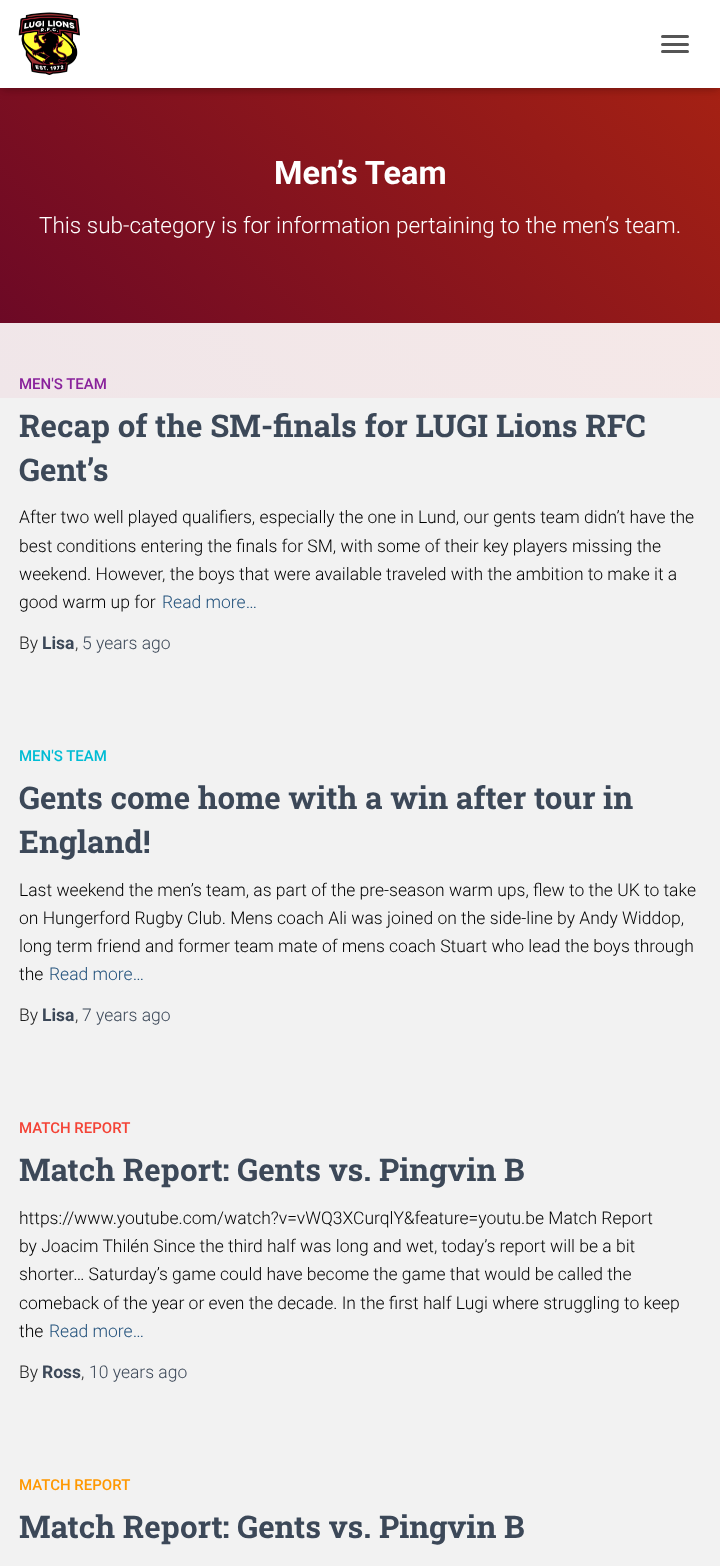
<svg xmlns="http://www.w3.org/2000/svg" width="720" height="1566">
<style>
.a{font:bold 32.5px Roboto;fill:#fff}
.b{font:300 22.5px Roboto;fill:#fff}
.c{font:500 15px Roboto;fill:#89229b}
.d{font:bold 31.25px Roboto Slab;fill:#3c4858}
.e{font:300 17.5px Roboto;fill:#000}
.f{font:300 17.5px Roboto;fill:#23527c}
.g{font:300 17.5px Roboto;fill:#202020}
.h{font:bold 17.5px Roboto;fill:#3c4858}
.i{font:300 17.5px Roboto;fill:#3c4858}
.j{font:500 15px Roboto;fill:#00bcd4}
.k{font:500 15px Roboto;fill:#f44336}
.l{font:500 15px Roboto;fill:#ff9800}
</style>
<defs>
<linearGradient id="g1" gradientUnits="userSpaceOnUse" x1="81" y1="478" x2="639" y2="-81"><stop offset="0" stop-color="#680727"/><stop offset="1" stop-color="#aa2312"/></linearGradient>
<linearGradient id="g2" gradientUnits="userSpaceOnUse" x1="81" y1="478" x2="639" y2="-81"><stop offset="0" stop-color="#f0e6e9"/><stop offset="1" stop-color="#f7e9e7"/></linearGradient>
</defs>
<rect width="100%" height="100%" fill="#f2f2f2"/>
<path fill="url(#g1)" d="M0 88h720v235H0z"/>
<path fill="#0000001a" filter="blur(3px)" d="M3 8h715v82H3z"/>
<path fill="#0000001f" filter="blur(6px)" d="M0 1h720v88H0z"/>
<path fill="#0000006b" filter="blur(6px)" d="M8 9h705v72H8z"/>
<path fill="#fff" d="M0 0h720v88H0z"/>
<image href="1.png" x="18" y="12" width="62" height="63"/>
<rect fill="#555" x="661" y="35" width="28" height="3" rx="1.5"/>
<rect fill="#555" x="661" y="43" width="28" height="3" rx="1.5"/>
<rect fill="#555" x="661" y="50" width="28" height="3" rx="1.5"/>
<path fill="url(#g2)" d="M0 323h720v75H0z"/>
<text class="a" x="274" y="184">Men’s Team</text>
<text class="b" x="39" y="233">This sub-category is for information pertaining to the men’s team.</text>
<text class="c" x="19" y="389">MEN'S TEAM</text>
<text class="d" x="19" y="437">Recap of the SM-finals for LUGI Lions RFC</text>
<text class="d" x="19" y="481">Gent’s</text>
<text class="e" x="19" y="523">After two well played qualifiers, especially the one in Lund, our gents team didn’t have the</text>
<text class="e" x="19" y="552">best conditions entering the finals for SM, with some of their key players missing the</text>
<text class="e" x="19" y="580">weekend. However, the boys that were available traveled with the ambition to make it a</text>
<text class="e" x="19" y="608">good warm up for</text>
<text class="f" x="162" y="608">Read more…</text>
<text class="g" x="19" y="649">By</text>
<text class="h" x="42" y="649">Lisa</text>
<text class="g" x="75" y="649">,</text>
<text class="i" x="82" y="649">5 years ago</text>
<text class="j" x="19" y="761">MEN'S TEAM</text>
<text class="d" x="19" y="809">Gents come home with a win after tour in</text>
<text class="d" x="19" y="853">England!</text>
<text class="e" x="19" y="896">Last weekend the men’s team, as part of the pre-season warm ups, flew to the UK to take</text>
<text class="e" x="19" y="924">on Hungerford Rugby Club. Mens coach Ali was joined on the side-line by Andy Widdop,</text>
<text class="e" x="19" y="952">long term friend and former team mate of mens coach Stuart who lead the boys through</text>
<text class="e" x="19" y="980">the</text>
<text class="f" x="49" y="980">Read more…</text>
<text class="g" x="19" y="1021">By</text>
<text class="h" x="42" y="1021">Lisa</text>
<text class="g" x="75" y="1021">,</text>
<text class="i" x="82" y="1021">7 years ago</text>
<text class="k" x="19" y="1133">MATCH REPORT</text>
<text class="d" x="19" y="1181">Match Report: Gents vs. Pingvin B</text>
<text class="e" x="19" y="1224">https://www.youtube.com/watch?v=vWQ3XCurqlY&amp;feature=youtu.be Match Report</text>
<text class="e" x="19" y="1252">by Joacim Thilén Since the third half was long and wet, today’s report will be a bit</text>
<text class="e" x="19" y="1280">shorter… Saturday’s game could have become the game that would be called the</text>
<text class="e" x="19" y="1309">comeback of the year or even the decade. In the first half Lugi where struggling to keep</text>
<text class="e" x="19" y="1337">the</text>
<text class="f" x="49" y="1337">Read more…</text>
<text class="g" x="19" y="1378">By</text>
<text class="h" x="42" y="1378">Ross</text>
<text class="g" x="81" y="1378">,</text>
<text class="i" x="89" y="1378">10 years ago</text>
<text class="l" x="19" y="1490">MATCH REPORT</text>
<text class="d" x="19" y="1538">Match Report: Gents vs. Pingvin B</text>
</svg>
